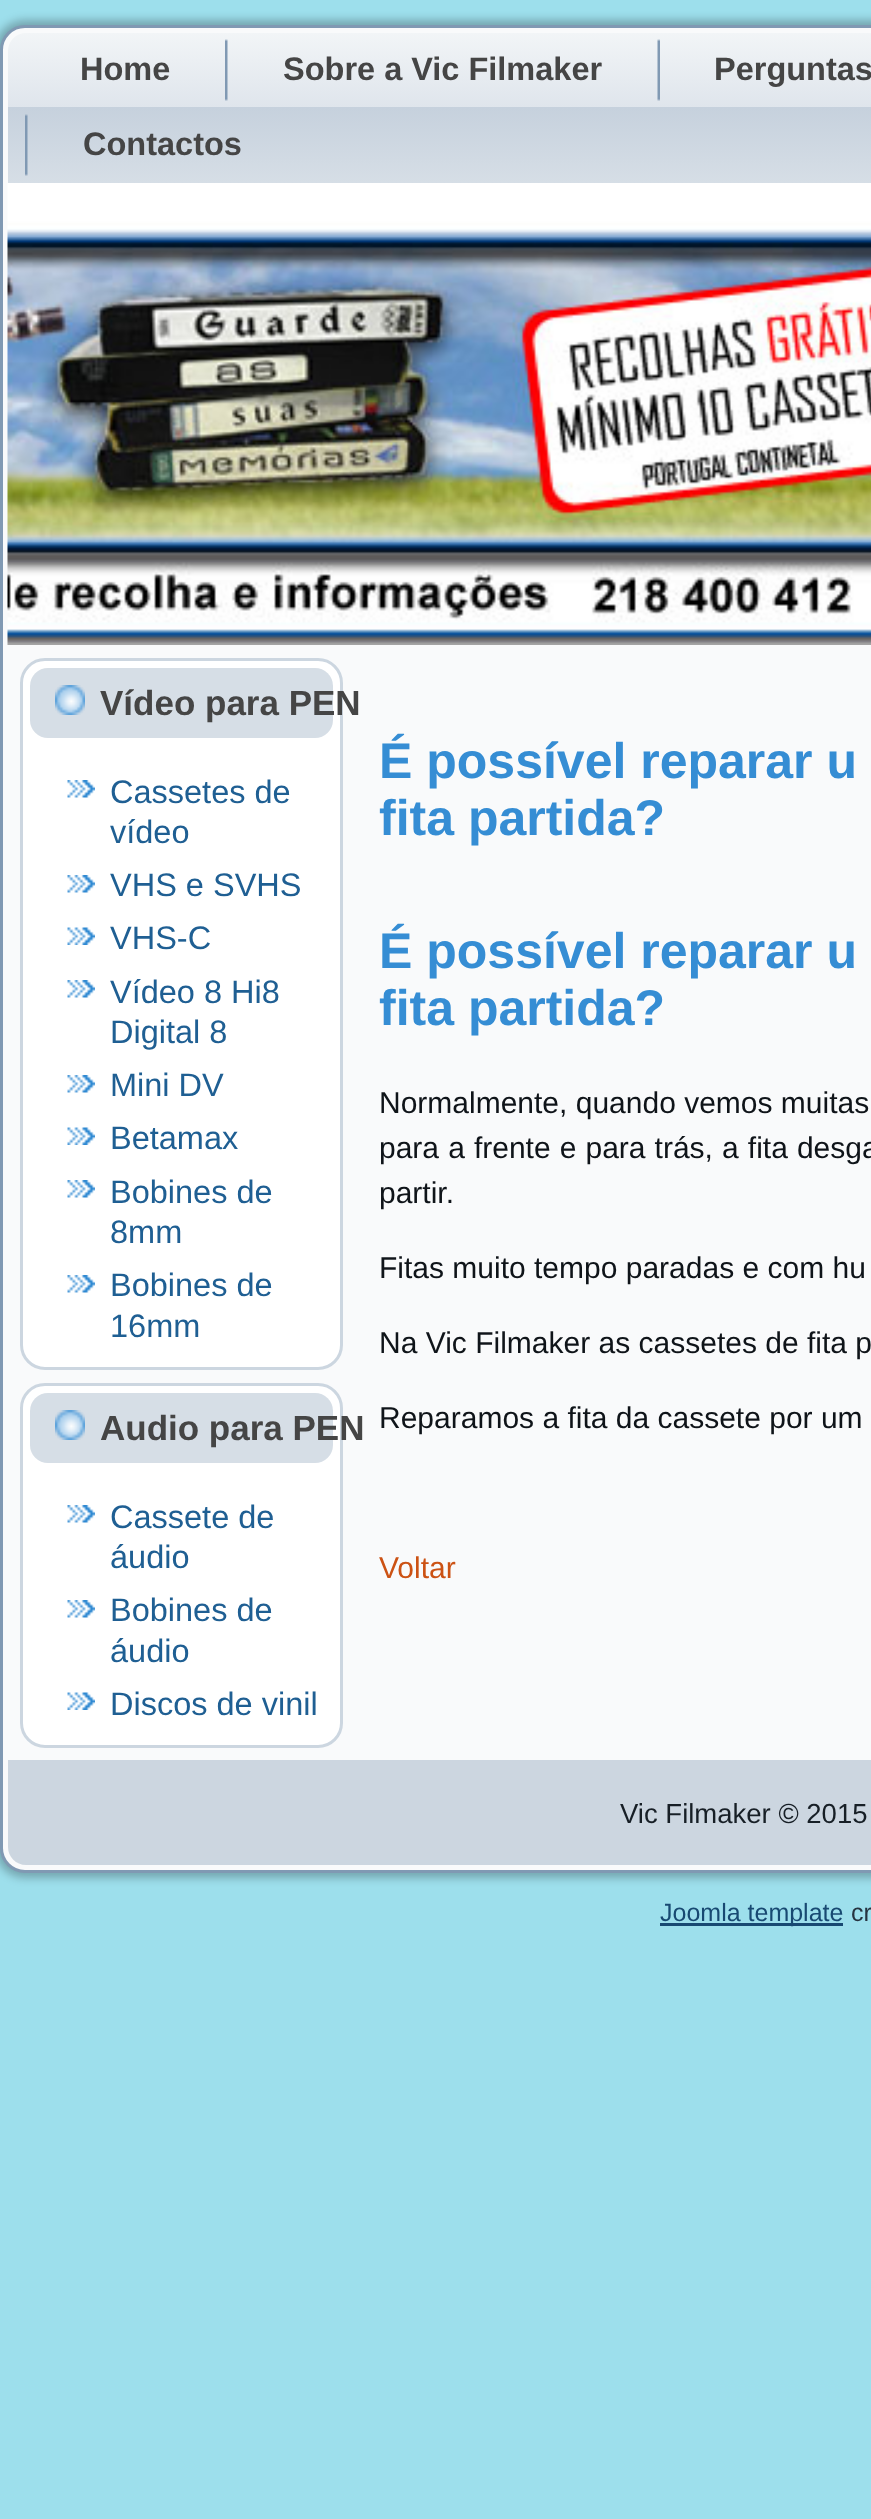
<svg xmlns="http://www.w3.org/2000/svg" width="871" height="2519">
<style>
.a{font:bold 32.5px Liberation Sans;fill:#454545}
.b{font:bold 35px Liberation Sans;fill:#454545}
.c{font:32.5px Liberation Sans;fill:#1f5f93}
.d{font:bold 50px Liberation Sans;fill:#358dd4}
.e{font:30px Liberation Sans;fill:#0f1419}
.f{font:30px Liberation Sans;fill:#cc5214}
.g{font:27.5px Liberation Sans;fill:#171f26}
.h{font:25px Liberation Sans;fill:#184972}
.i{font:25px Liberation Sans;fill:#263340}
</style>
<defs>
<linearGradient id="g1" gradientUnits="userSpaceOnUse" x1="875" y1="32" x2="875" y2="183"><stop offset="0" stop-color="#f2f5f7"/><stop offset="0.5" stop-color="#dfe5ec"/><stop offset="0.5" stop-color="#c6d1dd"/><stop offset="1" stop-color="#d6dee6"/></linearGradient>
</defs>
<rect width="100%" height="100%" fill="#9ddfec"/>
<rect fill="#00000040" filter="blur(4px)" x="-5" y="20" width="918" height="1858" rx="30"/>
<rect fill="#f9fafb" stroke="#8099b3" stroke-width="3" x="1.5" y="26.5" width="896" height="1845" rx="23.5"/>
<path fill="url(#g1)" d="M26 33h845c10 0 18 8 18 18v132h-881v-132c0-10 8-18 18-18z"/>
<image href="1.png" x="225" y="39" width="3" height="62"/>
<image href="2.png" x="657" y="39" width="3" height="62"/>
<image href="3.png" x="25" y="114" width="3" height="62"/>
<image href="4.png" x="7" y="183" width="864" height="462"/>
<rect fill="#fff" stroke="#ccd6e0" stroke-width="3" x="21.5" y="659.5" width="320" height="709" rx="23.5"/>
<rect fill="#d6dee6" x="30" y="668" width="303" height="70" rx="18"/>
<image href="5.png" x="55" y="685" width="30" height="30"/>
<image href="6.png" x="67" y="780" width="28" height="18"/>
<image href="7.png" x="67" y="875" width="28" height="18"/>
<image href="8.png" x="67" y="927" width="28" height="18"/>
<image href="7.png" x="67" y="980" width="28" height="18"/>
<image href="7.png" x="67" y="1075" width="28" height="18"/>
<image href="8.png" x="67" y="1127" width="28" height="18"/>
<image href="7.png" x="67" y="1180" width="28" height="18"/>
<image href="7.png" x="67" y="1275" width="28" height="18"/>
<rect fill="#fff" stroke="#ccd6e0" stroke-width="3" x="21.5" y="1384.5" width="320" height="362" rx="23.5"/>
<rect fill="#d6dee6" x="30" y="1393" width="303" height="70" rx="18"/>
<image href="5.png" x="55" y="1410" width="30" height="30"/>
<image href="7.png" x="67" y="1505" width="28" height="18"/>
<image href="7.png" x="67" y="1600" width="28" height="18"/>
<image href="8.png" x="67" y="1692" width="28" height="18"/>
<path fill="#ccd6e0" d="M8 1760h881v87c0 10-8 18-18 18h-845c-10 0-18-8-18-18z"/>
<path fill="#184972" d="M660 1923h183v3H660z"/>
<text class="a" x="80" y="80">Home</text>
<text class="a" x="283" y="80">Sobre a Vic Filmaker</text>
<text class="a" x="714" y="80">Perguntas</text>
<text class="a" x="83" y="155">Contactos</text>
<text class="b" x="100" y="715">Vídeo para PEN</text>
<text class="c" x="110" y="803">Cassetes de</text>
<text class="c" x="110" y="843">vídeo</text>
<text class="c" x="110" y="896">VHS e SVHS</text>
<text class="c" x="110" y="949">VHS-C</text>
<text class="c" x="110" y="1003">Vídeo 8 Hi8</text>
<text class="c" x="110" y="1043">Digital 8</text>
<text class="c" x="110" y="1096">Mini DV</text>
<text class="c" x="110" y="1149">Betamax</text>
<text class="c" x="110" y="1203">Bobines de</text>
<text class="c" x="110" y="1243">8mm</text>
<text class="c" x="110" y="1296">Bobines de</text>
<text class="c" x="110" y="1337">16mm</text>
<text class="b" x="100" y="1440">Audio para PEN</text>
<text class="c" x="110" y="1528">Cassete de</text>
<text class="c" x="110" y="1568">áudio</text>
<text class="c" x="110" y="1621">Bobines de</text>
<text class="c" x="110" y="1662">áudio</text>
<text class="c" x="110" y="1715">Discos de vinil</text>
<text class="d" x="379" y="778">É possível reparar u</text>
<text class="d" x="379" y="835">fita partida?</text>
<text class="d" x="379" y="968">É possível reparar u</text>
<text class="d" x="379" y="1025">fita partida?</text>
<text class="e" x="379" y="1113">Normalmente, quando vemos muitas</text>
<text class="e" x="379" y="1158" word-spacing="0.75">para a frente e para trás, a fita desga</text>
<text class="e" x="379" y="1203">partir.</text>
<text class="e" x="379" y="1278">Fitas muito tempo paradas e com hu</text>
<text class="e" x="379" y="1353">Na Vic Filmaker as cassetes de fita p</text>
<text class="e" x="379" y="1428">Reparamos a fita da cassete por um</text>
<text class="f" x="379" y="1578">Voltar</text>
<text class="g" x="620" y="1823">Vic Filmaker © 2015</text>
<text class="h" x="660" y="1921">Joomla template</text>
<text class="i" x="851" y="1921">cr</text>
</svg>
